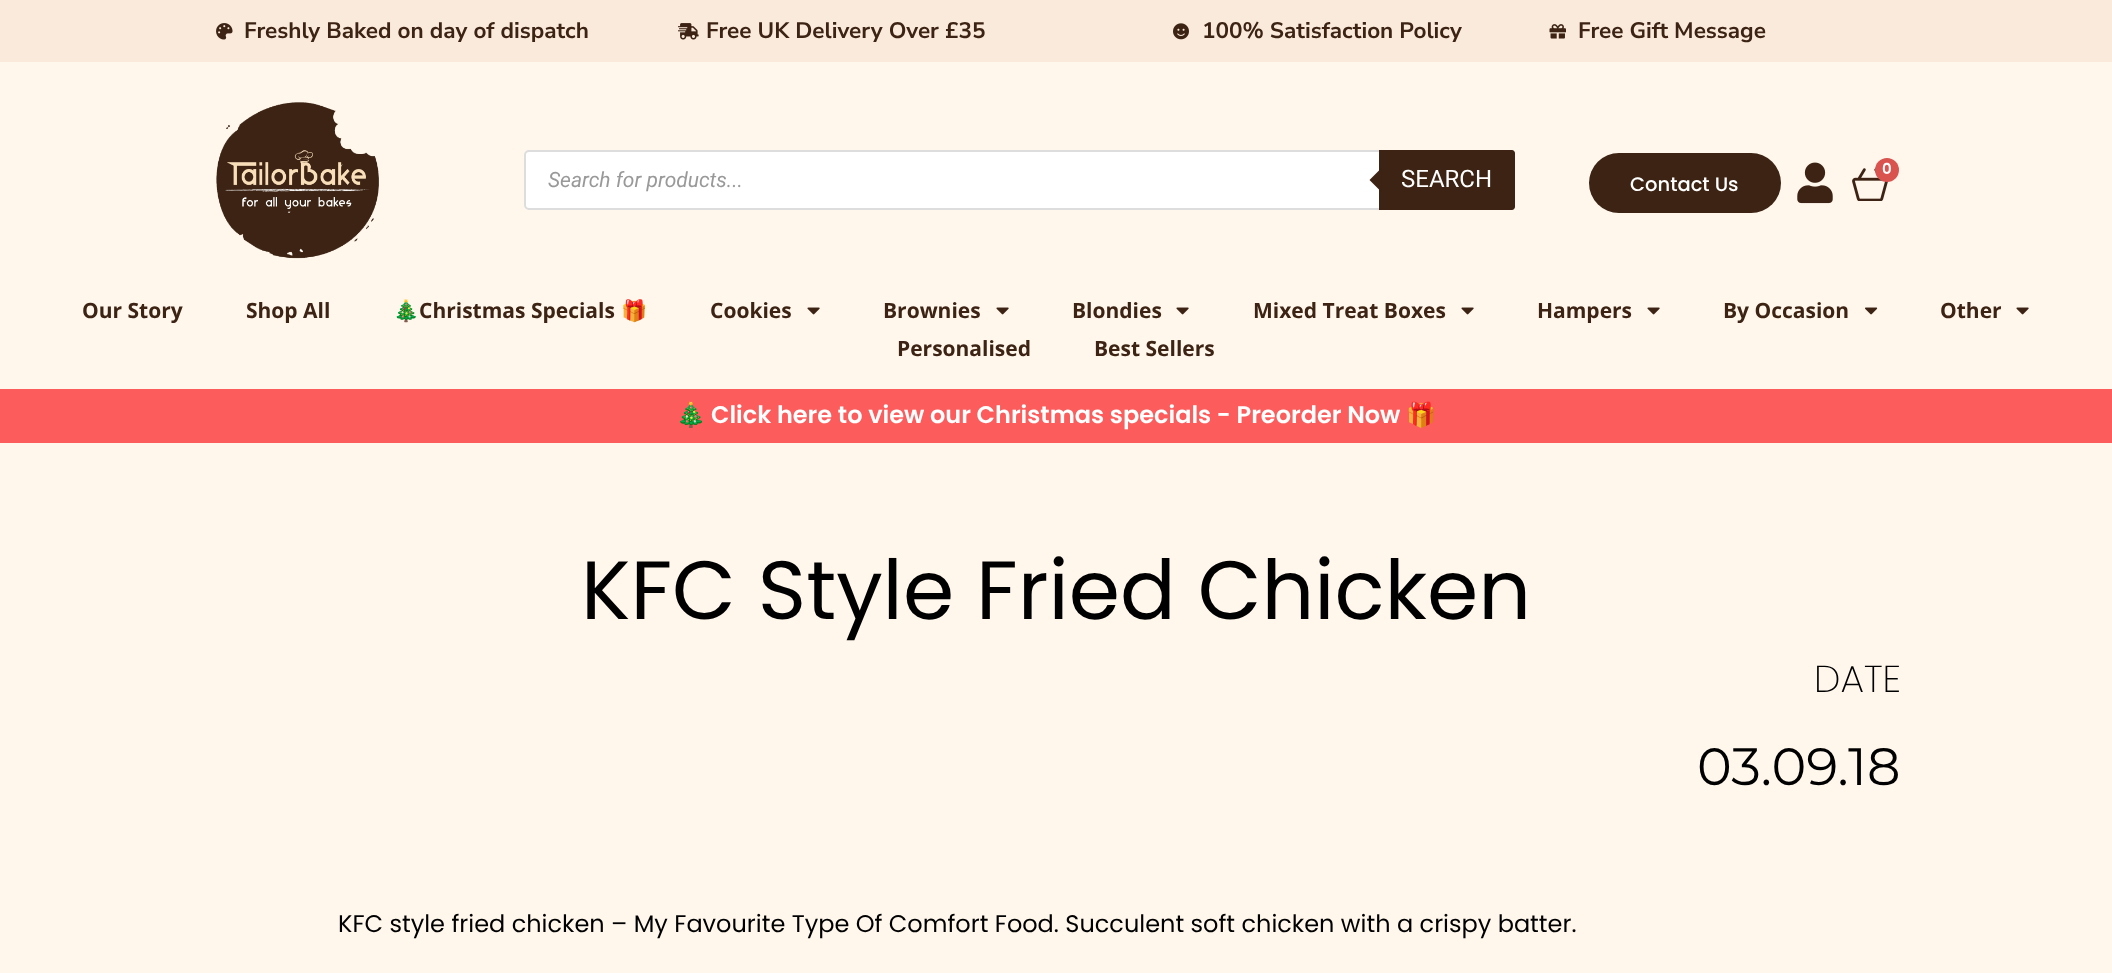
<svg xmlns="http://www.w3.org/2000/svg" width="2112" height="973">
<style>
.a{font:bold 22.5px Nunito Sans;fill:#3c2313}
.b{font:italic 21px Roboto;fill:#999}
.c{font:24px Roboto;fill:#fff}
.d{font:600 15px Poppins;fill:#fff}
.e{font:500 19.5px Poppins;fill:#fff}
.f{font:bold 21px Open Sans;fill:#3c2313}
.g{font:bold 21px Noto Color Emoji;fill:#3c2313}
.h{font:bold 24px Noto Color Emoji;fill:#fff}
.i{font:600 24px Poppins;fill:#fff}
.j{font:82.5px Poppins;fill:#000}
.k{font:200 37.5px Poppins;fill:#000}
.l{font:52.5px Montserrat;fill:#000}
.m{font:24px Poppins;fill:#000}
</style>
<rect width="100%" height="100%" fill="#fff7ec"/>
<path fill="#f9eadb" d="M0 0h2112v62H0z"/>
<image href="1.png" x="216" y="23" width="17" height="17"/>
<image href="2.png" x="678" y="23" width="21" height="17"/>
<image href="3.png" x="1173" y="23" width="16" height="17"/>
<image href="4.png" x="1549" y="24" width="17" height="15"/>
<image href="5.png" x="216" y="102" width="163" height="157"/>
<rect fill="#fff" stroke="#ddd" stroke-width="2" x="525" y="151" width="989" height="58" rx="4"/>
<path fill="#3c2313" d="M1379 150h133c1.5 0 3 1.5 3 3v54c0 1.5-1.5 3-3 3h-133z"/>
<path fill="#3c2313" d="M1381.5 168v24l-12-12z"/>
<image href="6.png" x="1797" y="162" width="36" height="42"/>
<image href="7.png" x="1852" y="168" width="36" height="33"/>
<circle fill="#d9534f" cx="1887" cy="170" r="12"/>
<rect fill="#3c2313" x="1589" y="153" width="192" height="60" rx="30"/>
<image href="8.png" x="807" y="307" width="13" height="8"/>
<image href="8.png" x="996" y="307" width="13" height="8"/>
<image href="8.png" x="1176" y="307" width="13" height="8"/>
<image href="8.png" x="1461" y="307" width="13" height="8"/>
<image href="8.png" x="1647" y="307" width="13" height="8"/>
<image href="9.png" x="1865" y="307" width="13" height="8"/>
<image href="8.png" x="2016" y="307" width="13" height="8"/>
<path fill="#fd5c5c" d="M0 389h2112v54H0z"/>
<text class="a" x="244" y="38">Freshly Baked on day of dispatch</text>
<text class="a" x="706" y="38">Free UK Delivery Over £35</text>
<text class="a" x="1202" y="38">100% Satisfaction Policy</text>
<text class="a" x="1578" y="38">Free Gift Message</text>
<text class="b" x="548" y="187">Search for products...</text>
<text class="c" x="1401" y="187">SEARCH</text>
<text class="d" x="1882" y="174">0</text>
<text class="e" x="1630" y="191">Contact Us</text>
<text class="f" x="82" y="318">Our Story</text>
<text class="f" x="246" y="318">Shop All</text>
<text class="g" x="393" y="318">🎄</text>
<text class="f" x="419" y="318">Christmas Specials</text>
<text class="g" x="621" y="318">🎁</text>
<text class="f" x="710" y="318">Cookies</text>
<text class="f" x="883" y="318">Brownies</text>
<text class="f" x="1072" y="318">Blondies</text>
<text class="f" x="1253" y="318">Mixed Treat Boxes</text>
<text class="f" x="1537" y="318">Hampers</text>
<text class="f" x="1723" y="318">By Occasion</text>
<text class="f" x="1940" y="318">Other</text>
<text class="f" x="897" y="356">Personalised</text>
<text class="f" x="1094" y="356">Best Sellers</text>
<text class="h" x="676" y="423">🎄</text>
<text class="i" x="711" y="423">Click here to view our Christmas specials - Preorder Now</text>
<text class="h" x="1406" y="423">🎁</text>
<text class="j" x="581" y="619">KFC Style Fried Chicken</text>
<text class="k" x="1814" y="692">DATE</text>
<text class="l" x="1697" y="785">03.09.18</text>
<text class="m" x="338" y="932">KFC style fried chicken – My Favourite Type Of Comfort Food. Succulent soft chicken with a crispy batter.</text>
</svg>
